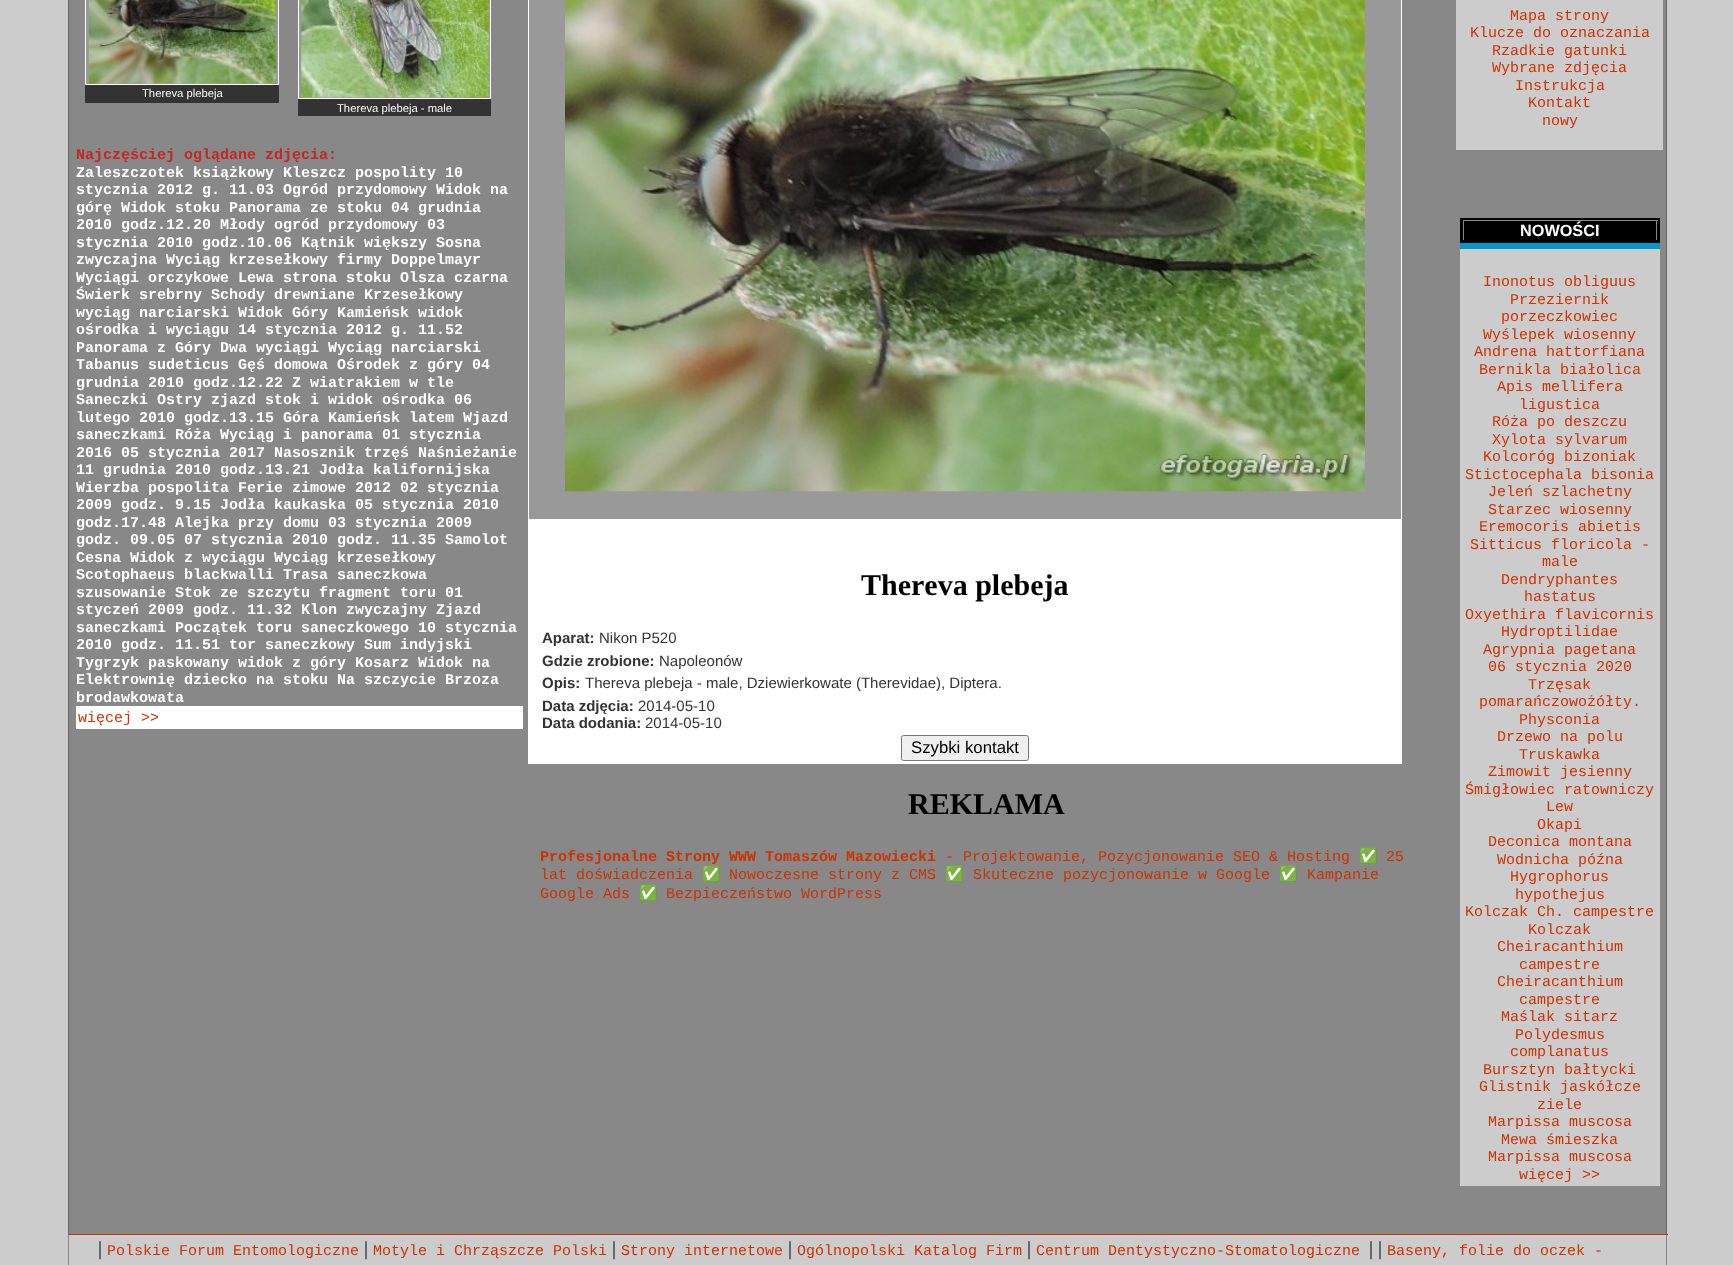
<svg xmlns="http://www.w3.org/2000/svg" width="1733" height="1265">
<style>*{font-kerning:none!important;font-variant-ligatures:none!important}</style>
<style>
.a{font:11.25px Liberation Sans;fill:#fff}
.b{font:bold 15px Liberation Mono;fill:#c52620}
.c{font:bold 15px Liberation Mono;fill:#fff}
.d{font:15px Liberation Mono;fill:#c30}
.e{font:bold 30px Liberation Serif;fill:#000}
.f{font:bold 15px Liberation Sans;fill:#333}
.g{font:15px Liberation Sans;fill:#333}
.h{font:16.75px Liberation Sans;fill:#000}
.i{font:bold 15px Liberation Mono;fill:#c30}
.j{font:15px Noto Color Emoji;fill:#c30}
.k{font:bold 16.25px Liberation Sans;fill:#fff}
.l{font:20px Liberation Serif;fill:#000}
</style>
<rect width="100%" height="100%" fill="#ccc"/>
<path fill="#888" d="M69 0h1597v1234H69z"/>
<path fill="#666" d="M1666 0h1v1235H1666z"/>
<path fill="#c30" d="M68 1234h1600v1H68z"/>
<path fill="#666" d="M68 0h1v1235H68z"/>
<path fill="#999" stroke="#fff" d="M85.5 -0.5h193v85H85.5z"/>
<image href="1.png" x="88" y="0" width="189" height="84"/>
<path fill="#333" d="M85 85h194v18H85z"/>
<path fill="#999" stroke="#fff" d="M298.5 -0.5h192v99H298.5z"/>
<image href="2.png" x="301" y="0" width="188" height="98"/>
<path fill="#333" d="M298 99h193v17H298z"/>
<path fill="#fff" d="M76 706h447v23H76z"/>
<path fill="#fff" d="M1401 0h1v764H1401z"/>
<path fill="#fff" d="M528 0h1v764H528z"/>
<path fill="#999" d="M529 0h872v519H529z"/>
<image href="3.png" x="565" y="0" width="800" height="492"/>
<path fill="#fff" d="M529 519h872v245H529z"/>
<rect fill="#efefef" stroke="#767676" x="901.5" y="735.5" width="127" height="25" rx="2"/>
<path fill="#ccc" d="M1456 0h207v150H1456z"/>
<path fill="#000" d="M1460 218h200v25H1460z"/>
<path fill="#888" d="M1463 220h195v1H1463z"/>
<path fill="#888" d="M1656 220h1v20H1656z"/>
<path fill="#888" d="M1463 220h1v20H1463z"/>
<path fill="#09c" d="M1460 243h200v6H1460z"/>
<path fill="#ccc" d="M1460 249h200v937H1460z"/>
<path fill="#888" d="M1666 1235h1v30H1666z"/>
<path fill="#888" d="M68 1235h1v30H68z"/>
<text class="a" x="142" y="97">Thereva plebeja</text>
<text class="a" x="337" y="112">Thereva plebeja - male</text>
<text class="b" x="76" y="159">Najczęściej oglądane zdjęcia:</text>
<text class="c" x="76" y="177">Zaleszczotek książkowy Kleszcz pospolity 10</text>
<text class="c" x="76" y="194">stycznia 2012 g. 11.03 Ogród przydomowy Widok na</text>
<text class="c" x="76" y="212">górę Widok stoku Panorama ze stoku 04 grudnia</text>
<text class="c" x="76" y="229">2010 godz.12.20 Młody ogród przydomowy 03</text>
<text class="c" x="76" y="247">stycznia 2010 godz.10.06 Kątnik większy Sosna</text>
<text class="c" x="76" y="264">zwyczajna Wyciąg krzesełkowy firmy Doppelmayr</text>
<text class="c" x="76" y="282">Wyciągi orczykowe Lewa strona stoku Olsza czarna</text>
<text class="c" x="76" y="299">Świerk srebrny Schody drewniane Krzesełkowy</text>
<text class="c" x="76" y="317">wyciąg narciarski Widok Góry Kamieńsk widok</text>
<text class="c" x="76" y="334">ośrodka i wyciągu 14 stycznia 2012 g. 11.52</text>
<text class="c" x="76" y="352">Panorama z Góry Dwa wyciągi Wyciąg narciarski</text>
<text class="c" x="76" y="369">Tabanus sudeticus Gęś domowa Ośrodek z góry 04</text>
<text class="c" x="76" y="387">grudnia 2010 godz.12.22 Z wiatrakiem w tle</text>
<text class="c" x="76" y="404">Saneczki Ostry zjazd stok i widok ośrodka 06</text>
<text class="c" x="76" y="422">lutego 2010 godz.13.15 Góra Kamieńsk latem Wjazd</text>
<text class="c" x="76" y="439">saneczkami Róża Wyciąg i panorama 01 stycznia</text>
<text class="c" x="76" y="457">2016 05 stycznia 2017 Nasosznik trzęś Naśnieżanie</text>
<text class="c" x="76" y="474">11 grudnia 2010 godz.13.21 Jodła kalifornijska</text>
<text class="c" x="76" y="492">Wierzba pospolita Ferie zimowe 2012 02 stycznia</text>
<text class="c" x="76" y="509">2009 godz. 9.15 Jodła kaukaska 05 stycznia 2010</text>
<text class="c" x="76" y="527">godz.17.48 Alejka przy domu 03 stycznia 2009</text>
<text class="c" x="76" y="544">godz. 09.05 07 stycznia 2010 godz. 11.35 Samolot</text>
<text class="c" x="76" y="562">Cesna Widok z wyciągu Wyciąg krzesełkowy</text>
<text class="c" x="76" y="579">Scotophaeus blackwalli Trasa saneczkowa</text>
<text class="c" x="76" y="597">szusowanie Stok ze szczytu fragment toru 01</text>
<text class="c" x="76" y="614">styczeń 2009 godz. 11.32 Klon zwyczajny Zjazd</text>
<text class="c" x="76" y="632">saneczkami Początek toru saneczkowego 10 stycznia</text>
<text class="c" x="76" y="649">2010 godz. 11.51 tor saneczkowy Sum indyjski</text>
<text class="c" x="76" y="667">Tygrzyk paskowany widok z góry Kosarz Widok na</text>
<text class="c" x="76" y="684">Elektrownię dziecko na stoku Na szczycie Brzoza</text>
<text class="c" x="76" y="702">brodawkowata</text>
<text class="d" x="78" y="722">więcej &gt;&gt;</text>
<text class="e" x="861" y="595">Thereva plebeja</text>
<text class="f" x="542" y="643">Aparat:</text>
<text class="g" x="599" y="643">Nikon P520</text>
<text class="f" x="542" y="666">Gdzie zrobione:</text>
<text class="g" x="659" y="666">Napoleonów</text>
<text class="f" x="542" y="688">Opis:</text>
<text class="g" x="585" y="688">Thereva plebeja - male, Dziewierkowate (Therevidae), Diptera.</text>
<text class="f" x="542" y="711">Data zdjęcia:</text>
<text class="g" x="638" y="711">2014-05-10</text>
<text class="f" x="542" y="728">Data dodania:</text>
<text class="g" x="645" y="728">2014-05-10</text>
<text class="h" x="911" y="753">Szybki kontakt</text>
<text class="e" x="908" y="814">REKLAMA</text>
<text class="i" x="540" y="861">Profesjonalne Strony WWW Tomaszów Mazowiecki</text>
<text class="d" x="945" y="861">- Projektowanie, Pozycjonowanie SEO &amp; Hosting</text>
<text class="j" x="1359" y="861">✅</text>
<text class="d" x="1386" y="861">25</text>
<text class="d" x="540" y="879">lat doświadczenia</text>
<text class="j" x="702" y="879">✅</text>
<text class="d" x="729" y="879">Nowoczesne strony z CMS</text>
<text class="j" x="945" y="879">✅</text>
<text class="d" x="973" y="879">Skuteczne pozycjonowanie w Google</text>
<text class="j" x="1279" y="879">✅</text>
<text class="d" x="1307" y="879">Kampanie</text>
<text class="d" x="540" y="898">Google Ads</text>
<text class="j" x="639" y="898">✅</text>
<text class="d" x="666" y="898">Bezpieczeństwo WordPress</text>
<text class="d" x="1510" y="20">Mapa strony</text>
<text class="d" x="1470" y="37">Klucze do oznaczania</text>
<text class="d" x="1492" y="55">Rzadkie gatunki</text>
<text class="d" x="1492" y="72">Wybrane zdjęcia</text>
<text class="d" x="1515" y="90">Instrukcja</text>
<text class="d" x="1528" y="107">Kontakt</text>
<text class="d" x="1542" y="125">nowy</text>
<text class="k" x="1520" y="236">NOWOŚCI</text>
<text class="d" x="1483" y="286">Inonotus obliguus</text>
<text class="d" x="1510" y="304">Przeziernik</text>
<text class="d" x="1501" y="321">porzeczkowiec</text>
<text class="d" x="1483" y="339">Wyślepek wiosenny</text>
<text class="d" x="1474" y="356">Andrena hattorfiana</text>
<text class="d" x="1479" y="374">Bernikla białolica</text>
<text class="d" x="1497" y="391">Apis mellifera</text>
<text class="d" x="1519" y="409">ligustica</text>
<text class="d" x="1492" y="426">Róża po deszczu</text>
<text class="d" x="1492" y="444">Xylota sylvarum</text>
<text class="d" x="1483" y="461">Kolcoróg bizoniak</text>
<text class="d" x="1465" y="479">Stictocephala bisonia</text>
<text class="d" x="1488" y="496">Jeleń szlachetny</text>
<text class="d" x="1488" y="514">Starzec wiosenny</text>
<text class="d" x="1479" y="531">Eremocoris abietis</text>
<text class="d" x="1470" y="549">Sitticus floricola -</text>
<text class="d" x="1542" y="566">male</text>
<text class="d" x="1501" y="584">Dendryphantes</text>
<text class="d" x="1524" y="601">hastatus</text>
<text class="d" x="1465" y="619">Oxyethira flavicornis</text>
<text class="d" x="1501" y="636">Hydroptilidae</text>
<text class="d" x="1483" y="654">Agrypnia pagetana</text>
<text class="d" x="1488" y="671">06 stycznia 2020</text>
<text class="d" x="1528" y="689">Trzęsak</text>
<text class="d" x="1479" y="706">pomarańczowożółty.</text>
<text class="d" x="1519" y="724">Physconia</text>
<text class="d" x="1497" y="741">Drzewo na polu</text>
<text class="d" x="1519" y="759">Truskawka</text>
<text class="d" x="1488" y="776">Zimowit jesienny</text>
<text class="d" x="1465" y="794">Śmigłowiec ratowniczy</text>
<text class="d" x="1546" y="811">Lew</text>
<text class="d" x="1537" y="829">Okapi</text>
<text class="d" x="1488" y="846">Deconica montana</text>
<text class="d" x="1497" y="864">Wodnicha późna</text>
<text class="d" x="1510" y="881">Hygrophorus</text>
<text class="d" x="1515" y="899">hypothejus</text>
<text class="d" x="1465" y="916">Kolczak Ch. campestre</text>
<text class="d" x="1528" y="934">Kolczak</text>
<text class="d" x="1497" y="951">Cheiracanthium</text>
<text class="d" x="1519" y="969">campestre</text>
<text class="d" x="1497" y="986">Cheiracanthium</text>
<text class="d" x="1519" y="1004">campestre</text>
<text class="d" x="1501" y="1021">Maślak sitarz</text>
<text class="d" x="1515" y="1039">Polydesmus</text>
<text class="d" x="1510" y="1056">complanatus</text>
<text class="d" x="1483" y="1074">Bursztyn bałtycki</text>
<text class="d" x="1479" y="1091">Glistnik jaskółcze</text>
<text class="d" x="1537" y="1109">ziele</text>
<text class="d" x="1488" y="1126">Marpissa muscosa</text>
<text class="d" x="1501" y="1144">Mewa śmieszka</text>
<text class="d" x="1488" y="1161">Marpissa muscosa</text>
<text class="d" x="1519" y="1179">więcej &gt;&gt;</text>
<text class="l" x="98" y="1255">|</text>
<text class="d" x="107" y="1255">Polskie Forum Entomologiczne</text>
<text class="l" x="364" y="1255">|</text>
<text class="d" x="373" y="1255">Motyle i Chrząszcze Polski</text>
<text class="l" x="612" y="1255">|</text>
<text class="d" x="621" y="1255">Strony internetowe</text>
<text class="l" x="788" y="1255">|</text>
<text class="d" x="797" y="1255">Ogólnopolski Katalog Firm</text>
<text class="l" x="1027" y="1255">|</text>
<text class="d" x="1036" y="1255">Centrum Dentystyczno-Stomatologiczne</text>
<text class="l" x="1369" y="1255">| |</text>
<text class="d" x="1387" y="1255">Baseny, folie do oczek -</text>
</svg>
